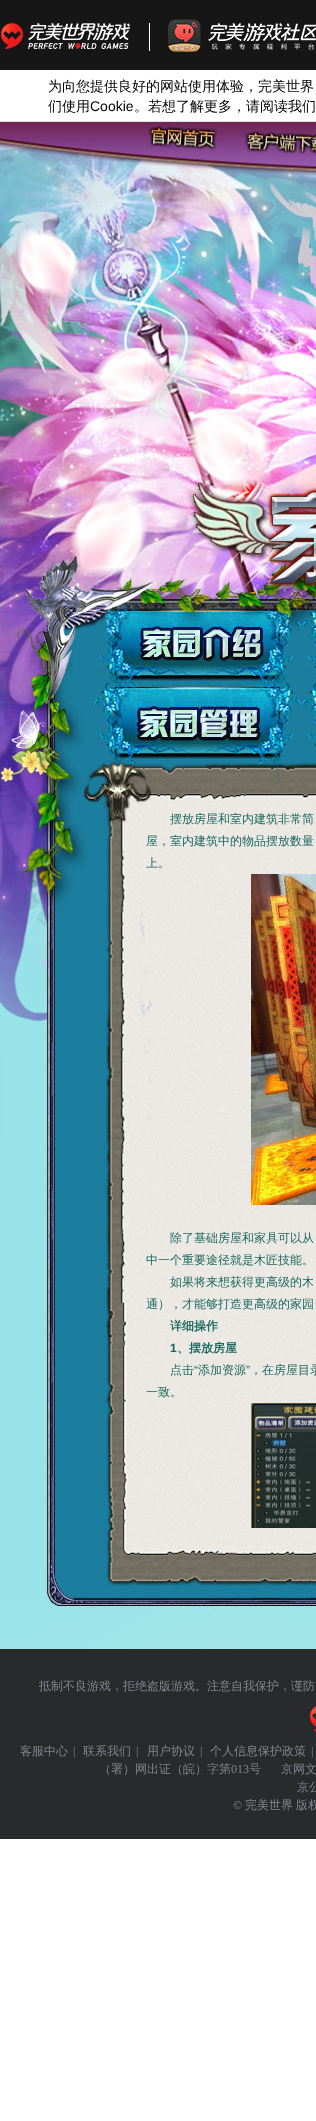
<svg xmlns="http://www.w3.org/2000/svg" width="316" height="2121">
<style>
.a{font:500 14px WenQuanYi Zen Hei;fill:#000}
.b{font:14px Liberation Sans;fill:#000}
.c{font:500 12px WenQuanYi Zen Hei;fill:#1a695d}
.d{font:bold 12px WenQuanYi Zen Hei;fill:#1a695d}
.e{font:bold 12px Liberation Sans;fill:#1a695d}
.f{font:12px Liberation Sans;fill:#1a695d}
.g{font:500 12px WenQuanYi Zen Hei;fill:#81868c}
.h{font:12px Liberation Serif;fill:#81868c}
</style>
<rect width="100%" height="100%" fill="#fff"/>
<path fill="#161616" d="M0 0h316v70H0z"/>
<image href="1.png" x="1" y="19" width="315" height="33"/>
<path fill="#e2e2e2" d="M0 121h316v1H0z"/>
<path fill="#97e3e8" d="M0 1141h3v252H0z"/>
<image href="2.png" x="0" y="1049" width="3" height="92"/>
<image href="3.png" x="0" y="122" width="316" height="83"/>
<image href="4.png" x="0" y="205" width="316" height="81"/>
<image href="5.png" x="0" y="286" width="316" height="82"/>
<image href="6.png" x="0" y="368" width="316" height="81"/>
<image href="7.png" x="0" y="449" width="316" height="82"/>
<image href="8.png" x="0" y="531" width="316" height="81"/>
<image href="9.png" x="0" y="612" width="316" height="71"/>
<image href="10.png" x="135" y="622" width="132" height="40"/>
<image href="11.png" x="0" y="683" width="316" height="85"/>
<image href="12.png" x="135" y="703" width="129" height="39"/>
<image href="13.png" x="0" y="1393" width="316" height="256"/>
<image href="14.png" x="3" y="1049" width="313" height="344"/>
<image href="15.png" x="0" y="768" width="316" height="281"/>
<image href="16.png" x="251" y="874" width="65" height="331"/>
<image href="17.png" x="251" y="1403" width="65" height="125"/>
<path fill="#282a2c" d="M0 1649h316v190H0z"/>
<image href="18.png" x="310" y="1706" width="6" height="26"/>
<text class="a" x="48" y="91">为向您提供良好的网站使用体验，完美世界</text>
<text class="a" x="48" y="111">们使用</text>
<text class="b" x="90" y="111">Cookie</text>
<text class="a" x="134" y="111">。若想了解更多，请阅读我们</text>
<text class="c" x="170" y="823">摆放房屋和室内建筑非常简</text>
<text class="c" x="146" y="845">屋，室内建筑中的物品摆放数量</text>
<text class="c" x="146" y="867">上。</text>
<text class="c" x="170" y="1242">除了基础房屋和家具可以从</text>
<text class="c" x="146" y="1264">中一个重要途径就是木匠技能。</text>
<text class="c" x="170" y="1286">如果将来想获得更高级的木</text>
<text class="c" x="146" y="1308">通），才能够打造更高级的家园</text>
<text class="d" x="170" y="1330">详细操作</text>
<text class="e" x="170" y="1352">1</text>
<text class="d" x="177" y="1352">、摆放房屋</text>
<text class="c" x="170" y="1374">点击</text>
<text class="f" x="194" y="1374">“</text>
<text class="c" x="198" y="1374">添加资源</text>
<text class="f" x="246" y="1374">”</text>
<text class="c" x="250" y="1374">，在房屋目录</text>
<text class="c" x="146" y="1396">一致。</text>
<text class="g" x="39" y="1690">抵制不良游戏，拒绝盗版游戏。注意自我保护，谨防</text>
<text class="g" x="20" y="1755">客服中心</text>
<text class="h" x="73" y="1755">|</text>
<text class="g" x="83" y="1755">联系我们</text>
<text class="h" x="136" y="1755">|</text>
<text class="g" x="147" y="1755">用户协议</text>
<text class="h" x="200" y="1755">|</text>
<text class="g" x="210" y="1755">个人信息保护政策</text>
<text class="h" x="311" y="1755">|</text>
<text class="g" x="99" y="1773">（署）网出证（皖）字第</text>
<text class="h" x="231" y="1773">013</text>
<text class="g" x="249" y="1773">号</text>
<text class="g" x="281" y="1773">京网文</text>
<text class="g" x="297" y="1791">京公</text>
<text class="h" x="233" y="1809">©</text>
<text class="g" x="245" y="1809">完美世界</text>
<text class="g" x="296" y="1809">版权</text>
</svg>
